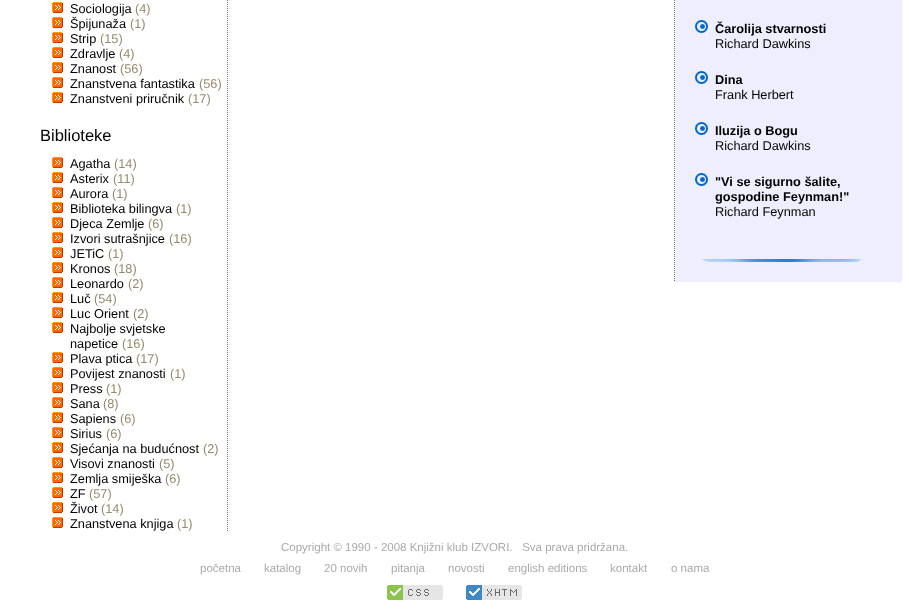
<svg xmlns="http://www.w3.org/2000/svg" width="909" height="612">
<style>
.a{font:12.75px Liberation Sans;fill:#000}
.b{font:12.75px Liberation Sans;fill:#948b6e}
.c{font:16.5px Liberation Sans;fill:#000}
.d{font:bold 12.75px Liberation Sans;fill:#000}
.e{font:11.5px Liberation Sans;fill:#aaa}
</style>
<rect width="100%" height="100%" fill="#fff"/>
<path fill="none" stroke="#777" stroke-dasharray="1 1" d="M227.5-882v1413"/>
<image href="1.png" x="52" y="2" width="11" height="11"/>
<image href="1.png" x="52" y="17" width="11" height="11"/>
<image href="1.png" x="52" y="32" width="11" height="11"/>
<image href="1.png" x="52" y="47" width="11" height="11"/>
<image href="1.png" x="52" y="62" width="11" height="11"/>
<image href="1.png" x="52" y="77" width="11" height="11"/>
<image href="1.png" x="52" y="92" width="11" height="11"/>
<image href="1.png" x="52" y="157" width="11" height="11"/>
<image href="1.png" x="52" y="172" width="11" height="11"/>
<image href="1.png" x="52" y="187" width="11" height="11"/>
<image href="1.png" x="52" y="202" width="11" height="11"/>
<image href="1.png" x="52" y="217" width="11" height="11"/>
<image href="1.png" x="52" y="232" width="11" height="11"/>
<image href="1.png" x="52" y="247" width="11" height="11"/>
<image href="1.png" x="52" y="262" width="11" height="11"/>
<image href="1.png" x="52" y="277" width="11" height="11"/>
<image href="1.png" x="52" y="292" width="11" height="11"/>
<image href="1.png" x="52" y="307" width="11" height="11"/>
<image href="1.png" x="52" y="322" width="11" height="11"/>
<image href="1.png" x="52" y="352" width="11" height="11"/>
<image href="1.png" x="52" y="367" width="11" height="11"/>
<image href="1.png" x="52" y="382" width="11" height="11"/>
<image href="1.png" x="52" y="397" width="11" height="11"/>
<image href="1.png" x="52" y="412" width="11" height="11"/>
<image href="1.png" x="52" y="427" width="11" height="11"/>
<image href="1.png" x="52" y="442" width="11" height="11"/>
<image href="1.png" x="52" y="457" width="11" height="11"/>
<image href="1.png" x="52" y="472" width="11" height="11"/>
<image href="1.png" x="52" y="487" width="11" height="11"/>
<image href="1.png" x="52" y="502" width="11" height="11"/>
<image href="1.png" x="52" y="517" width="11" height="11"/>
<path fill="none" stroke="#777" stroke-dasharray="1 1" d="M674.5-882v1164"/>
<path fill="#eef" d="M675 0h227v282H675z"/>
<image href="2.png" x="695" y="20" width="13" height="13"/>
<image href="2.png" x="695" y="71" width="13" height="13"/>
<image href="2.png" x="695" y="122" width="13" height="13"/>
<image href="2.png" x="695" y="173" width="13" height="13"/>
<image href="3.png" x="702" y="259" width="159" height="3"/>
<image href="4.png" x="387" y="585" width="56" height="15"/>
<image href="5.png" x="466" y="585" width="56" height="15"/>
<text class="a" x="70" y="13">Sociologija</text>
<text class="b" x="135" y="13">(4)</text>
<text class="a" x="70" y="28">Špijunaža</text>
<text class="b" x="130" y="28">(1)</text>
<text class="a" x="70" y="43">Strip</text>
<text class="b" x="100" y="43">(15)</text>
<text class="a" x="70" y="58">Zdravlje</text>
<text class="b" x="119" y="58">(4)</text>
<text class="a" x="70" y="73">Znanost</text>
<text class="b" x="120" y="73">(56)</text>
<text class="a" x="70" y="88">Znanstvena fantastika</text>
<text class="b" x="199" y="88">(56)</text>
<text class="a" x="70" y="103">Znanstveni priručnik</text>
<text class="b" x="188" y="103">(17)</text>
<text class="c" x="40" y="141">Biblioteke</text>
<text class="a" x="70" y="168">Agatha</text>
<text class="b" x="114" y="168">(14)</text>
<text class="a" x="70" y="183">Asterix</text>
<text class="b" x="113" y="183">(11)</text>
<text class="a" x="70" y="198">Aurora</text>
<text class="b" x="112" y="198">(1)</text>
<text class="a" x="70" y="213">Biblioteka bilingva</text>
<text class="b" x="176" y="213">(1)</text>
<text class="a" x="70" y="228">Djeca Zemlje</text>
<text class="b" x="148" y="228">(6)</text>
<text class="a" x="70" y="243">Izvori sutrašnjice</text>
<text class="b" x="169" y="243">(16)</text>
<text class="a" x="70" y="258">JETiC</text>
<text class="b" x="108" y="258">(1)</text>
<text class="a" x="70" y="273">Kronos</text>
<text class="b" x="114" y="273">(18)</text>
<text class="a" x="70" y="288">Leonardo</text>
<text class="b" x="128" y="288">(2)</text>
<text class="a" x="70" y="303">Luč</text>
<text class="b" x="94" y="303">(54)</text>
<text class="a" x="70" y="318">Luc Orient</text>
<text class="b" x="133" y="318">(2)</text>
<text class="a" x="70" y="333">Najbolje svjetske</text>
<text class="a" x="70" y="348">napetice</text>
<text class="b" x="122" y="348">(16)</text>
<text class="a" x="70" y="363">Plava ptica</text>
<text class="b" x="136" y="363">(17)</text>
<text class="a" x="70" y="378">Povijest znanosti</text>
<text class="b" x="170" y="378">(1)</text>
<text class="a" x="70" y="393">Press</text>
<text class="b" x="106" y="393">(1)</text>
<text class="a" x="70" y="408">Sana</text>
<text class="b" x="103" y="408">(8)</text>
<text class="a" x="70" y="423">Sapiens</text>
<text class="b" x="120" y="423">(6)</text>
<text class="a" x="70" y="438">Sirius</text>
<text class="b" x="106" y="438">(6)</text>
<text class="a" x="70" y="453">Sjećanja na budućnost</text>
<text class="b" x="203" y="453">(2)</text>
<text class="a" x="70" y="468">Visovi znanosti</text>
<text class="b" x="159" y="468">(5)</text>
<text class="a" x="70" y="483">Zemlja smiješka</text>
<text class="b" x="165" y="483">(6)</text>
<text class="a" x="70" y="498">ZF</text>
<text class="b" x="89" y="498">(57)</text>
<text class="a" x="70" y="513">Život</text>
<text class="b" x="101" y="513">(14)</text>
<text class="a" x="70" y="528">Znanstvena knjiga</text>
<text class="b" x="177" y="528">(1)</text>
<text class="d" x="715" y="33">Čarolija stvarnosti</text>
<text class="a" x="715" y="48">Richard Dawkins</text>
<text class="d" x="715" y="84">Dina</text>
<text class="a" x="715" y="99">Frank Herbert</text>
<text class="d" x="715" y="135">Iluzija o Bogu</text>
<text class="a" x="715" y="150">Richard Dawkins</text>
<text class="d" x="715" y="186">"Vi se sigurno šalite,</text>
<text class="d" x="715" y="201">gospodine Feynman!"</text>
<text class="a" x="715" y="216">Richard Feynman</text>
<text class="e" xml:space="preserve" x="281" y="551">Copyright © 1990 - 2008 Knjižni klub IZVORI.   Sva prava pridržana.</text>
<text class="e" x="200" y="572">početna</text>
<text class="e" x="264" y="572">katalog</text>
<text class="e" x="324" y="572">20 novih</text>
<text class="e" x="391" y="572">pitanja</text>
<text class="e" x="448" y="572">novosti</text>
<text class="e" x="508" y="572">english editions</text>
<text class="e" x="610" y="572">kontakt</text>
<text class="e" x="671" y="572">o nama</text>
</svg>
